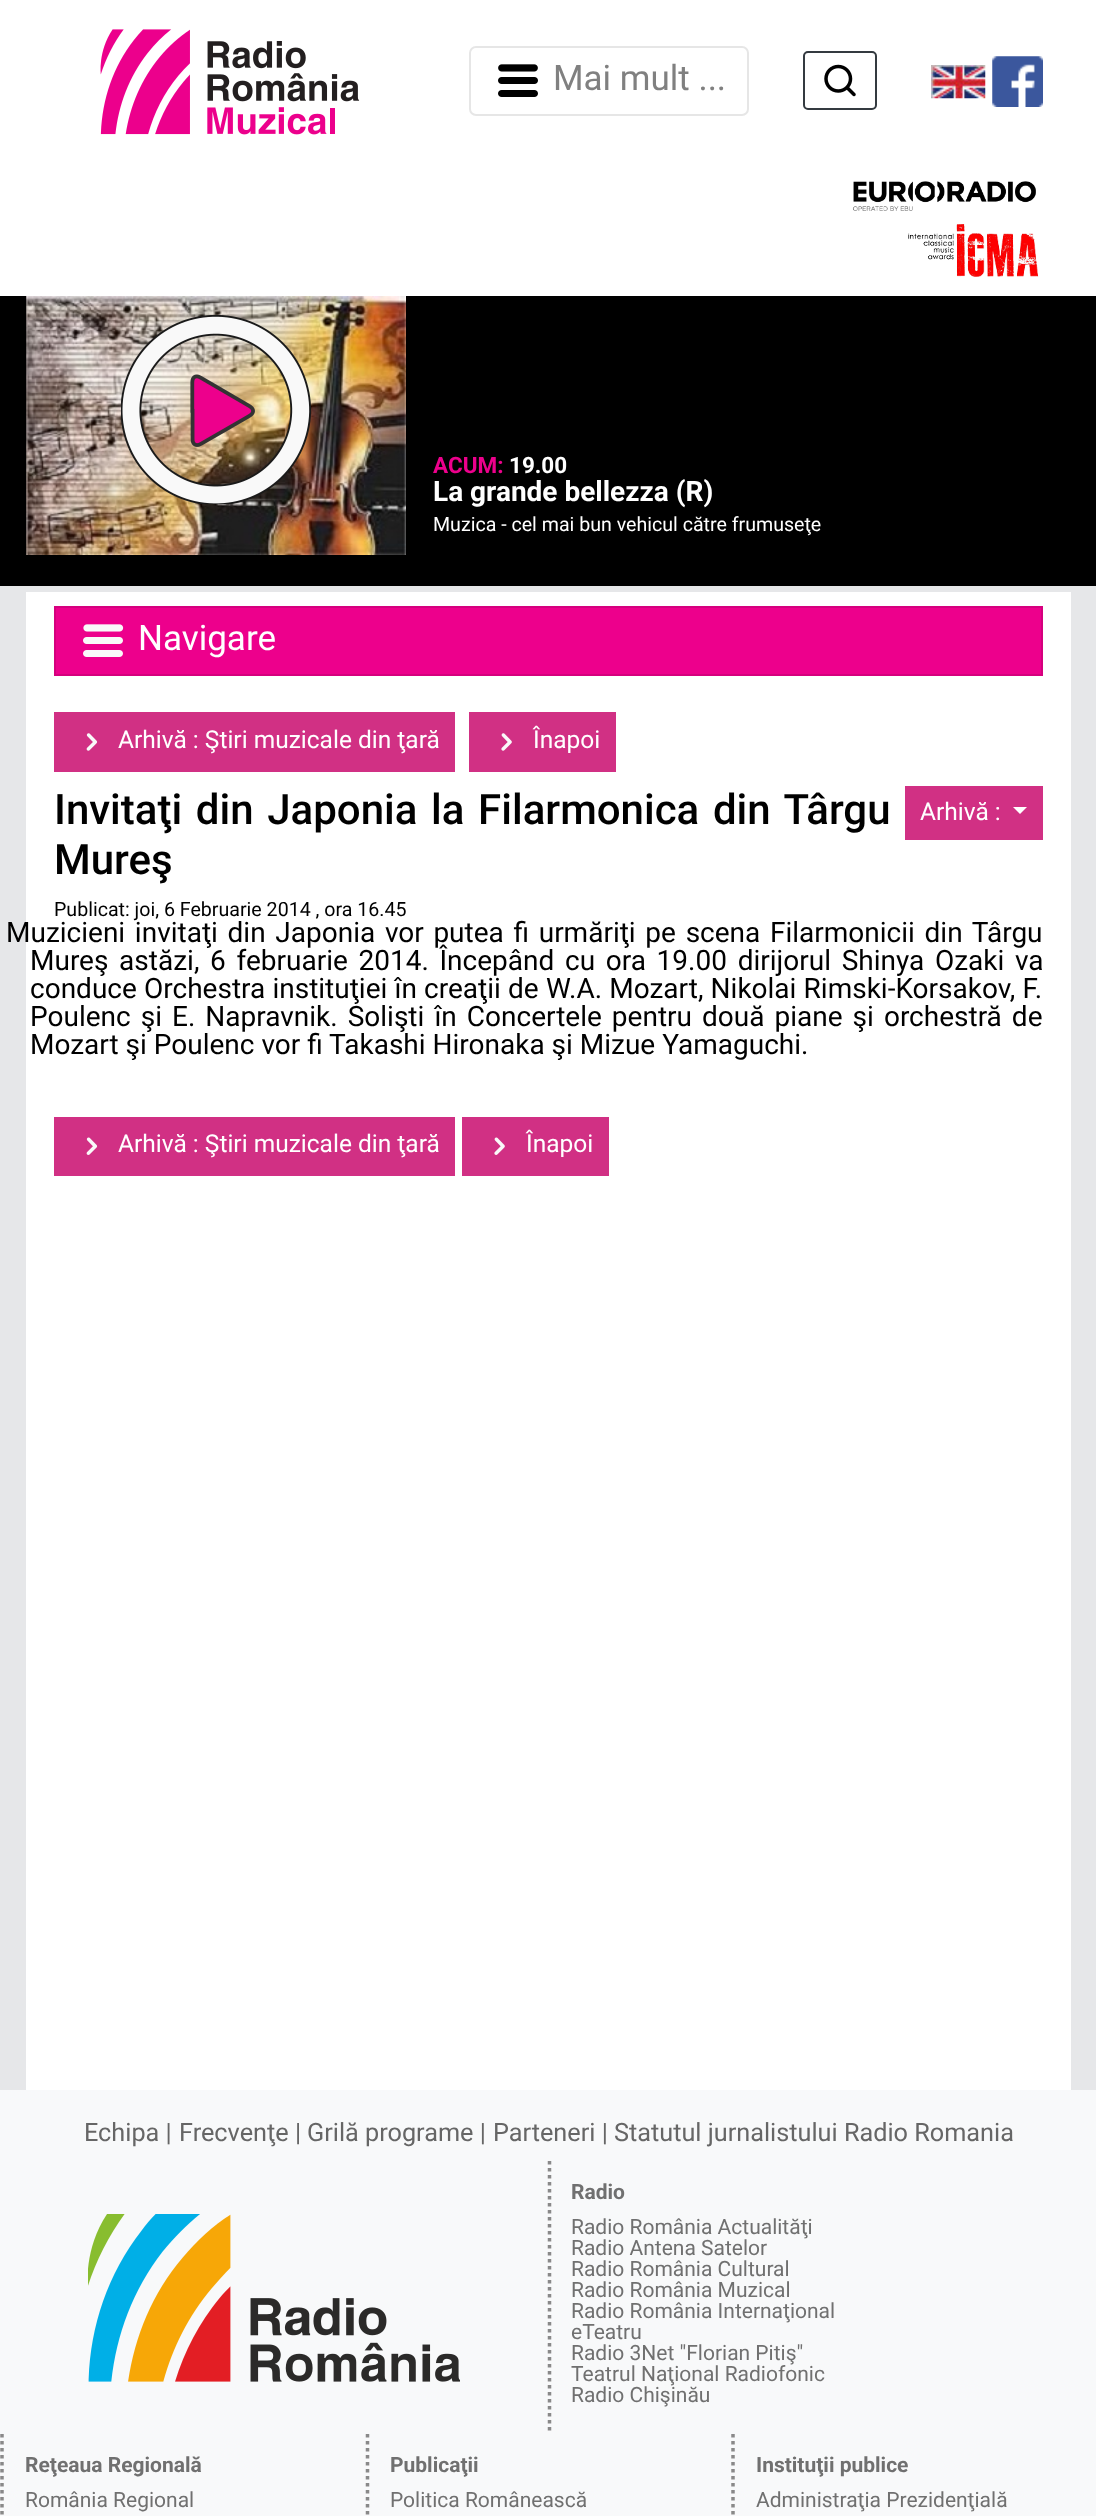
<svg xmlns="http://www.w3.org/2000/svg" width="1096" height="2516">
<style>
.a{font:35px Roboto;fill:#808080}
.b{font:bold 22.5px Roboto;fill:#ed008c}
.c{font:bold 22.5px Roboto;fill:#fff}
.d{font:bold 28px Roboto;fill:#fff}
.e{font:19.6px Roboto;fill:#fff}
.f{font:35px Roboto;fill:#fff}
.g{font:24.5px Roboto;fill:#fff}
.h{font:500 42px Roboto;fill:#000}
.i{font:19.6px Roboto;fill:#000}
.j{font:28px Roboto;fill:#000}
.k{font:25.25px Roboto;fill:#666}
.l{font:bold 21px Roboto;fill:#707070}
.m{font:21px Roboto;fill:#707070}
</style>
<rect width="100%" height="100%" fill="#e6e7e9"/>
<path fill="#fff" d="M0 0h1096v296H0z"/>
<image href="1.png" x="100" y="29" width="260" height="106"/>
<rect fill="none" stroke="#e6e6e6" stroke-width="2" x="470" y="47" width="278" height="68" rx="6"/>
<image href="2.png" x="498" y="64" width="40" height="33"/>
<rect fill="none" stroke="#343a40" stroke-width="2" x="804" y="52" width="72" height="57" rx="4"/>
<image href="3.png" x="824" y="64" width="32" height="33"/>
<image href="4.png" x="931" y="65" width="55" height="34"/>
<image href="5.png" x="992" y="56" width="51" height="51"/>
<image href="6.png" x="852" y="181" width="184" height="30"/>
<image href="7.png" x="908" y="224" width="131" height="53"/>
<path fill="#000" d="M0 296h1096v290H0z"/>
<image href="8.png" x="26" y="296" width="380" height="259"/>
<image href="9.png" x="121" y="315" width="191" height="189"/>
<path fill="#fff" d="M26 592h1045v1498H26z"/>
<path fill="#ed008c" stroke="#d5007e" stroke-width="2" d="M55 607h987v68H55z"/>
<image href="10.png" x="83" y="624" width="41" height="33"/>
<path fill="#d13084" d="M54 712h401v60H54z"/>
<image href="11.png" x="86" y="733" width="12" height="18"/>
<path fill="#d13084" d="M469 712h147v60H469z"/>
<image href="12.png" x="501" y="733" width="11" height="18"/>
<path fill="#d13084" d="M54 1117h401v59H54z"/>
<image href="13.png" x="86" y="1137" width="12" height="18"/>
<path fill="#d13084" d="M462 1117h147v59H462z"/>
<image href="14.png" x="494" y="1137" width="11" height="18"/>
<path fill="#d13084" d="M905 786h138v54H905z"/>
<path fill="#fff" d="M1013 807h14l-7 7z"/>
<path fill="#f8f9fa" d="M0 2090h1096v426H0z"/>
<image href="15.png" x="88" y="2214" width="372" height="168"/>
<path fill="none" stroke="#898989" stroke-width="3.5" stroke-dasharray="3.5 3.5" d="M549.5 2161v273"/>
<path fill="none" stroke="#898989" stroke-width="3.5" stroke-dasharray="3.5 3.5" d="M2 2434v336"/>
<path fill="none" stroke="#898989" stroke-width="3.5" stroke-dasharray="3.5 3.5" d="M367.5 2434v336"/>
<path fill="none" stroke="#898989" stroke-width="3.5" stroke-dasharray="3.5 3.5" d="M733 2434v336"/>
<text class="a" x="553" y="90">Mai mult ...</text>
<text class="b" x="433" y="473">ACUM:</text>
<text class="c" x="509" y="473">19.00</text>
<text class="d" x="433" y="501">La grande bellezza (R)</text>
<text class="e" x="433" y="531">Muzica - cel mai bun vehicul către frumuseţe</text>
<text class="f" x="138" y="650">Navigare</text>
<text class="g" x="118" y="748">Arhivă : Ştiri muzicale din ţară</text>
<text class="g" x="533" y="748">Înapoi</text>
<text class="h" x="54" y="824" word-spacing="3.25">Invitaţi din Japonia la Filarmonica din Târgu</text>
<text class="h" x="54" y="874">Mureş</text>
<text class="i" x="54" y="916">Publicat: joi, 6 Februarie 2014 , ora 16.45</text>
<text class="j" x="6" y="942" word-spacing="2.75">Muzicieni invitaţi din Japonia vor putea fi urmăriţi pe scena Filarmonicii din Târgu</text>
<text class="j" x="30" y="970" word-spacing="3.75">Mureş astăzi, 6 februarie 2014. Începând cu ora 19.00 dirijorul Shinya Ozaki va</text>
<text class="j" x="30" y="998" word-spacing="0.25">conduce Orchestra instituţiei în creaţii de W.A. Mozart, Nikolai Rimski-Korsakov, F.</text>
<text class="j" x="30" y="1026" word-spacing="3.1">Poulenc şi E. Napravnik. Solişti în Concertele pentru două piane şi orchestră de</text>
<text class="j" x="30" y="1054">Mozart şi Poulenc vor fi Takashi Hironaka şi Mizue Yamaguchi.</text>
<text class="g" x="118" y="1152">Arhivă : Ştiri muzicale din ţară</text>
<text class="g" x="526" y="1152">Înapoi</text>
<text class="g" x="920" y="820">Arhivă :</text>
<text class="k" x="84" y="2141">Echipa |</text>
<text class="k" x="179" y="2141">Frecvenţe |</text>
<text class="k" x="307" y="2141">Grilă programe |</text>
<text class="k" x="493" y="2141">Parteneri |</text>
<text class="k" x="614" y="2141">Statutul jurnalistului Radio Romania</text>
<text class="l" x="571" y="2199">Radio</text>
<text class="m" x="571" y="2234">Radio România Actualităţi</text>
<text class="m" x="571" y="2255">Radio Antena Satelor</text>
<text class="m" x="571" y="2276">Radio România Cultural</text>
<text class="m" x="571" y="2297">Radio România Muzical</text>
<text class="m" x="571" y="2318">Radio România Internaţional</text>
<text class="m" x="571" y="2339">eTeatru</text>
<text class="m" x="571" y="2360">Radio 3Net "Florian Pitiş"</text>
<text class="m" x="571" y="2381">Teatrul Naţional Radiofonic</text>
<text class="m" x="571" y="2402">Radio Chişinău</text>
<text class="l" x="25" y="2472">Reţeaua Regională</text>
<text class="m" x="25" y="2507">România Regional</text>
<text class="l" x="390" y="2472">Publicaţii</text>
<text class="m" x="390" y="2507">Politica Românească</text>
<text class="l" x="756" y="2472">Instituţii publice</text>
<text class="m" x="756" y="2507">Administraţia Prezidenţială</text>
</svg>
